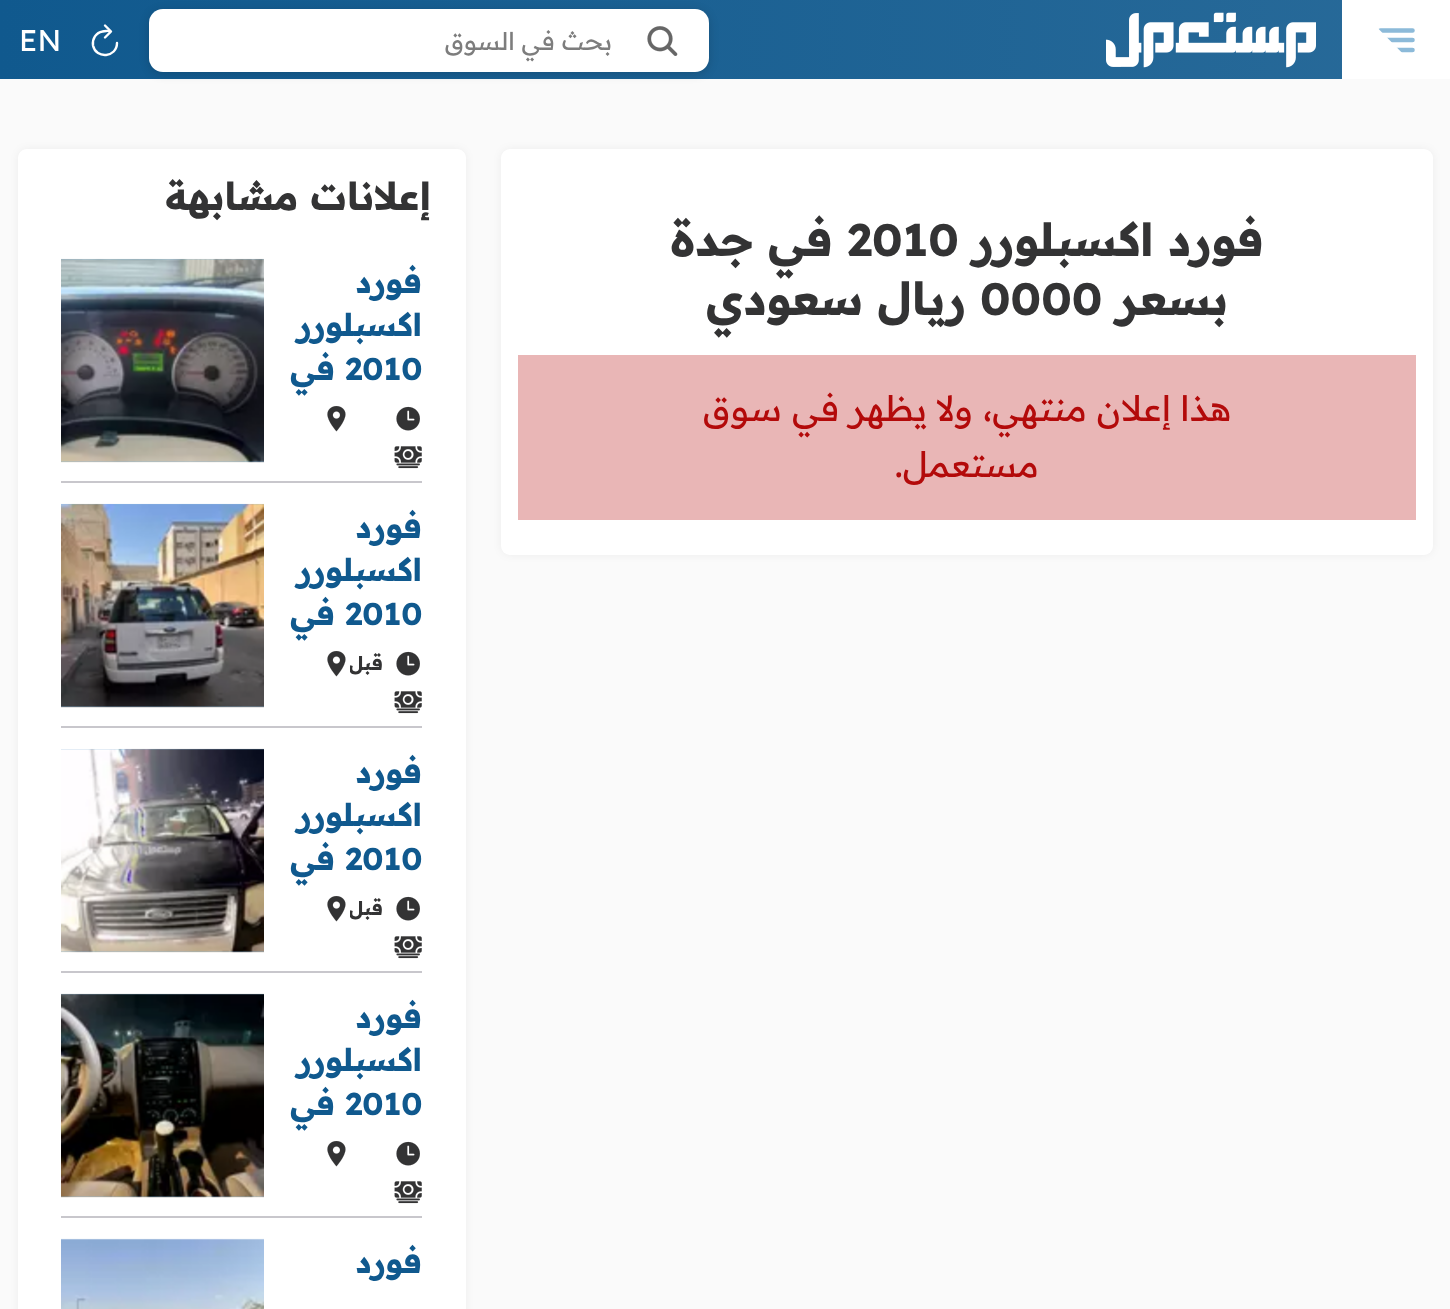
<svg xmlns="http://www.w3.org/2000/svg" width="1450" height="1309">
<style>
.a{font:24.5px Readex Pro;direction:rtl;fill:#7d7d7d}
.b{font:30px Readex Pro;fill:#fff}
.c{font:bold 45.5px Readex Pro;direction:rtl;fill:#333334}
.d{font:bold 45.5px Readex Pro;fill:#333334}
.e{font:35px Readex Pro;direction:rtl;fill:#b30a0a}
.f{font:bold 38.5px Readex Pro;direction:rtl;fill:#333334}
.g{font:bold 31.5px Readex Pro;direction:rtl;fill:#10598e}
.h{font:bold 31.5px Readex Pro;fill:#10598e}
.i{font:bold 19px Readex Pro;direction:rtl;fill:#333334}
</style>
<defs>
<linearGradient id="g1" gradientUnits="userSpaceOnUse" x1="0" y1="39" x2="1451" y2="39"><stop offset="0" stop-color="#10598e"/><stop offset="1" stop-color="#286a99"/></linearGradient>
<clipPath id="clip1"><path d="M1372 16h49v49H1372z"/></clipPath>
<clipPath id="clip2"><path d="M350 646h35v35H350z"/></clipPath>
<clipPath id="clip3"><path d="M350 891h35v35H350z"/></clipPath>
</defs>
<rect width="100%" height="100%" fill="#fafafa"/>
<path fill="url(#g1)" d="M0 0h1342v79H0z"/>
<path fill="#fff" d="M1342 0h108v79H1342z"/>
<path fill="none" stroke="#8cbad9" stroke-width="4.6" stroke-linecap="round" d="M1380.5 30.5h32m-32 9.5h32m-32 10h32"/>
<g clip-path="url(#clip1)">
<path fill="#fff" d="M1414 65h-52v-53z"/>
</g>
<image href="1.png" x="1106" y="12" width="210" height="56"/>
<rect fill="#00000029" filter="blur(5px)" x="149" y="11" width="560" height="63" rx="14"/>
<rect fill="#fff" x="149" y="9" width="560" height="63" rx="14"/>
<image href="2.png" x="647" y="26" width="31" height="30"/>
<path fill="none" stroke="#fff" stroke-width="2.4" stroke-linecap="round" d="M110 32v-.5c-1.5-1-6-.5-7.5 0c-6.5 1-10.5 7.5-9.5 14c3 14 24 12 24-2.5"/>
<path fill="none" stroke="#fff" stroke-width="2.4" stroke-linecap="round" stroke-linejoin="round" d="M105 25.5l6 6l-6 6"/>
<rect fill="#0000000d" filter="blur(4.5px)" x="501" y="149" width="932" height="406" rx="9"/>
<rect fill="#fff" x="501" y="149" width="932" height="406" rx="9"/>
<path fill="#e9b6b6" d="M518 355h898v165H518z"/>
<rect fill="#0000000d" filter="blur(4.5px)" x="18" y="149" width="448" height="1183" rx="9"/>
<path fill="#fff" d="M27 149h430c5 0 9 4 9 9v1151h-448v-1151c0-5 4-9 9-9z"/>
<path fill="#c8c7cc" d="M61 481h361v2H61z"/>
<image href="3.png" x="396" y="406" width="24" height="25"/>
<image href="4.png" x="327" y="406" width="19" height="26"/>
<image href="5.png" x="394" y="446" width="28" height="23"/>
<path fill="#8cbad9" d="M61 259h203v203H61z"/>
<image href="6.png" x="61" y="258" width="203" height="205"/>
<path fill="#c8c7cc" d="M61 726h361v2H61z"/>
<image href="3.png" x="396" y="651" width="24" height="25"/>
<image href="4.png" x="327" y="651" width="19" height="26"/>
<image href="5.png" x="394" y="691" width="28" height="23"/>
<path fill="#8cbad9" d="M61 504h203v203H61z"/>
<image href="7.png" x="61" y="503" width="203" height="205"/>
<path fill="#c8c7cc" d="M61 971h361v2H61z"/>
<image href="3.png" x="396" y="896" width="24" height="25"/>
<image href="4.png" x="327" y="896" width="19" height="26"/>
<image href="5.png" x="394" y="936" width="28" height="23"/>
<path fill="#8cbad9" d="M61 749h203v203H61z"/>
<image href="8.png" x="61" y="748" width="203" height="205"/>
<path fill="#c8c7cc" d="M61 1216h361v2H61z"/>
<image href="3.png" x="396" y="1141" width="24" height="25"/>
<image href="4.png" x="327" y="1141" width="19" height="26"/>
<image href="5.png" x="394" y="1181" width="28" height="23"/>
<path fill="#8cbad9" d="M61 994h203v203H61z"/>
<image href="9.png" x="61" y="993" width="203" height="205"/>
<image href="10.png" x="61" y="1238" width="203" height="71"/>
<text class="a" x="612" y="50">بحث في السوق</text>
<text class="b" x="19" y="51">EN</text>
<text class="c" x="1264" y="256">فورد اكسبلورر</text>
<text class="d" x="847" y="256">2010</text>
<text class="c" x="833" y="256">في جدة</text>
<text class="c" x="1228" y="315">بسعر</text>
<text class="d" x="980" y="315">0000</text>
<text class="c" x="966" y="315">ريال سعودي</text>
<text class="e" x="1231" y="421">هذا</text>
<text class="e" x="1171" y="421">إعلان منتهي،</text>
<text class="e" x="973" y="421">ولا يظهر في</text>
<text class="e" x="782" y="421">سوق</text>
<text class="e" x="1039" y="477">مستعمل.</text>
<text class="f" x="431" y="210">إعلانات مشابهة</text>
<text class="g" x="422" y="293">فورد</text>
<text class="g" x="422" y="336">اكسبلورر</text>
<text class="h" x="345" y="380">2010</text>
<text class="g" x="335" y="380">في</text>
<text class="g" x="422" y="538">فورد</text>
<text class="g" x="422" y="581">اكسبلورر</text>
<text class="h" x="345" y="625">2010</text>
<text class="g" x="335" y="625">في</text>
<g clip-path="url(#clip2)">
<text class="i" x="383" y="670">قبل</text>
</g>
<text class="g" x="422" y="783">فورد</text>
<text class="g" x="422" y="826">اكسبلورر</text>
<text class="h" x="345" y="870">2010</text>
<text class="g" x="335" y="870">في</text>
<g clip-path="url(#clip3)">
<text class="i" x="383" y="915">قبل</text>
</g>
<text class="g" x="422" y="1028">فورد</text>
<text class="g" x="422" y="1071">اكسبلورر</text>
<text class="h" x="345" y="1115">2010</text>
<text class="g" x="335" y="1115">في</text>
<text class="g" x="422" y="1273">فورد</text>
</svg>
